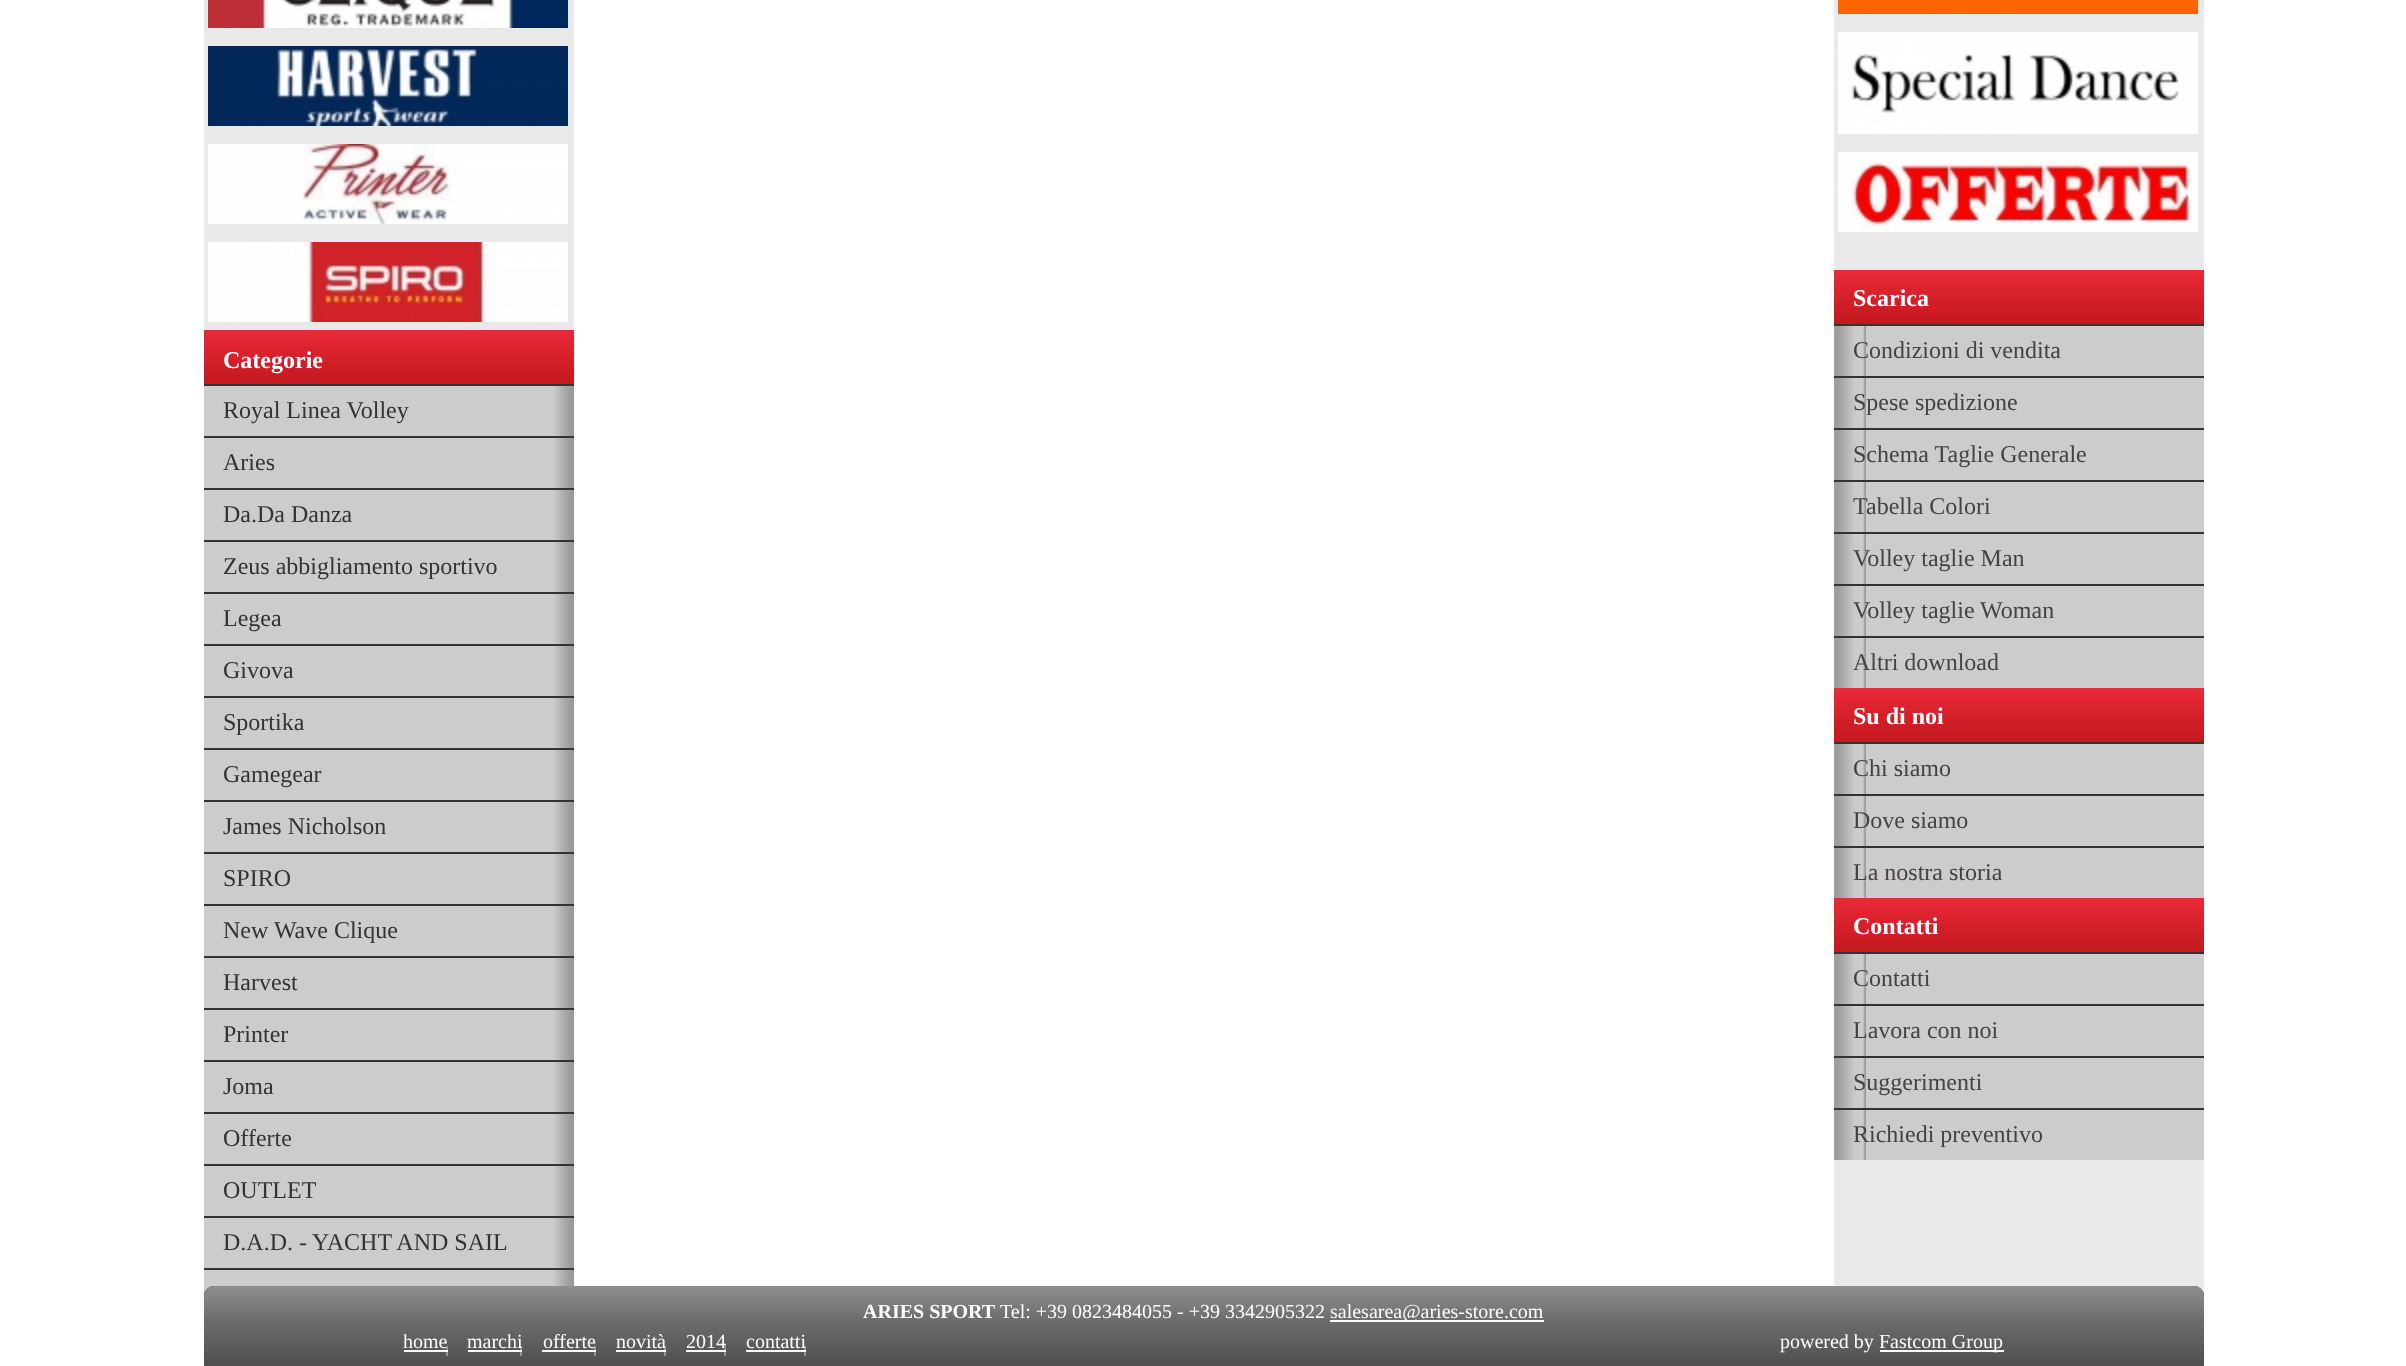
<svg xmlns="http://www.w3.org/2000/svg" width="2406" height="1366">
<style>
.a{font:bold 24px Liberation Serif;fill:#fff}
.b{font:24px Liberation Serif;fill:#333}
.c{font:24px Liberation Serif;fill:#474143}
.d{font:bold 20px Liberation Serif;fill:#fff}
.e{font:20px Liberation Serif;fill:#fff}
</style>
<rect width="100%" height="100%" fill="#fff"/>
<image href="1.png" x="204" y="0" width="2000" height="1296"/>
<path fill="#fff" d="M574 0h1260v32H574z"/>
<image href="2.png" x="208" y="0" width="360" height="28"/>
<image href="3.png" x="208" y="46" width="360" height="80"/>
<image href="4.png" x="208" y="144" width="360" height="80"/>
<image href="5.png" x="208" y="242" width="360" height="80"/>
<image href="6.png" x="204" y="330" width="370" height="54"/>
<path fill="#ccc" d="M204 386h350v50H204z"/>
<image href="7.png" x="554" y="386" width="20" height="50"/>
<path fill="#333" d="M204 384h370v2H204z"/>
<path fill="#ccc" d="M204 438h350v50H204z"/>
<image href="7.png" x="554" y="438" width="20" height="50"/>
<path fill="#333" d="M204 436h370v2H204z"/>
<path fill="#ccc" d="M204 490h350v50H204z"/>
<image href="7.png" x="554" y="490" width="20" height="50"/>
<path fill="#333" d="M204 488h370v2H204z"/>
<path fill="#ccc" d="M204 542h350v50H204z"/>
<image href="7.png" x="554" y="542" width="20" height="50"/>
<path fill="#333" d="M204 540h370v2H204z"/>
<path fill="#ccc" d="M204 594h350v50H204z"/>
<image href="7.png" x="554" y="594" width="20" height="50"/>
<path fill="#333" d="M204 592h370v2H204z"/>
<path fill="#ccc" d="M204 646h350v50H204z"/>
<image href="7.png" x="554" y="646" width="20" height="50"/>
<path fill="#333" d="M204 644h370v2H204z"/>
<path fill="#ccc" d="M204 698h350v50H204z"/>
<image href="7.png" x="554" y="698" width="20" height="50"/>
<path fill="#333" d="M204 696h370v2H204z"/>
<path fill="#ccc" d="M204 750h350v50H204z"/>
<image href="7.png" x="554" y="750" width="20" height="50"/>
<path fill="#333" d="M204 748h370v2H204z"/>
<path fill="#ccc" d="M204 802h350v50H204z"/>
<image href="7.png" x="554" y="802" width="20" height="50"/>
<path fill="#333" d="M204 800h370v2H204z"/>
<path fill="#ccc" d="M204 854h350v50H204z"/>
<image href="7.png" x="554" y="854" width="20" height="50"/>
<path fill="#333" d="M204 852h370v2H204z"/>
<path fill="#ccc" d="M204 906h350v50H204z"/>
<image href="7.png" x="554" y="906" width="20" height="50"/>
<path fill="#333" d="M204 904h370v2H204z"/>
<path fill="#ccc" d="M204 958h350v50H204z"/>
<image href="7.png" x="554" y="958" width="20" height="50"/>
<path fill="#333" d="M204 956h370v2H204z"/>
<path fill="#ccc" d="M204 1010h350v50H204z"/>
<image href="7.png" x="554" y="1010" width="20" height="50"/>
<path fill="#333" d="M204 1008h370v2H204z"/>
<path fill="#ccc" d="M204 1062h350v50H204z"/>
<image href="7.png" x="554" y="1062" width="20" height="50"/>
<path fill="#333" d="M204 1060h370v2H204z"/>
<path fill="#ccc" d="M204 1114h350v50H204z"/>
<image href="7.png" x="554" y="1114" width="20" height="50"/>
<path fill="#333" d="M204 1112h370v2H204z"/>
<path fill="#ccc" d="M204 1166h350v50H204z"/>
<image href="7.png" x="554" y="1166" width="20" height="50"/>
<path fill="#333" d="M204 1164h370v2H204z"/>
<path fill="#ccc" d="M204 1218h350v50H204z"/>
<image href="7.png" x="554" y="1218" width="20" height="50"/>
<path fill="#333" d="M204 1216h370v2H204z"/>
<path fill="#ccc" d="M204 1270h350v26H204z"/>
<image href="8.png" x="554" y="1270" width="20" height="16"/>
<path fill="#333" d="M204 1268h370v2H204z"/>
<image href="9.png" x="1838" y="0" width="360" height="14"/>
<image href="10.png" x="1838" y="32" width="360" height="102"/>
<image href="11.png" x="1838" y="152" width="360" height="80"/>
<image href="6.png" x="1834" y="270" width="370" height="54"/>
<path fill="#ccc" d="M1866 326h338v50H1866z"/>
<image href="12.png" x="1834" y="326" width="32" height="50"/>
<path fill="#333" d="M1834 324h370v2H1834z"/>
<path fill="#ccc" d="M1866 378h338v50H1866z"/>
<image href="12.png" x="1834" y="378" width="32" height="50"/>
<path fill="#333" d="M1834 376h370v2H1834z"/>
<path fill="#ccc" d="M1866 430h338v50H1866z"/>
<image href="12.png" x="1834" y="430" width="32" height="50"/>
<path fill="#333" d="M1834 428h370v2H1834z"/>
<path fill="#ccc" d="M1866 482h338v50H1866z"/>
<image href="12.png" x="1834" y="482" width="32" height="50"/>
<path fill="#333" d="M1834 480h370v2H1834z"/>
<path fill="#ccc" d="M1866 534h338v50H1866z"/>
<image href="12.png" x="1834" y="534" width="32" height="50"/>
<path fill="#333" d="M1834 532h370v2H1834z"/>
<path fill="#ccc" d="M1866 586h338v50H1866z"/>
<image href="12.png" x="1834" y="586" width="32" height="50"/>
<path fill="#333" d="M1834 584h370v2H1834z"/>
<path fill="#ccc" d="M1866 638h338v50H1866z"/>
<image href="12.png" x="1834" y="638" width="32" height="50"/>
<path fill="#333" d="M1834 636h370v2H1834z"/>
<image href="6.png" x="1834" y="688" width="370" height="54"/>
<path fill="#ccc" d="M1866 744h338v50H1866z"/>
<image href="12.png" x="1834" y="744" width="32" height="50"/>
<path fill="#333" d="M1834 742h370v2H1834z"/>
<path fill="#ccc" d="M1866 796h338v50H1866z"/>
<image href="12.png" x="1834" y="796" width="32" height="50"/>
<path fill="#333" d="M1834 794h370v2H1834z"/>
<path fill="#ccc" d="M1866 848h338v50H1866z"/>
<image href="12.png" x="1834" y="848" width="32" height="50"/>
<path fill="#333" d="M1834 846h370v2H1834z"/>
<image href="6.png" x="1834" y="898" width="370" height="54"/>
<path fill="#ccc" d="M1866 954h338v50H1866z"/>
<image href="12.png" x="1834" y="954" width="32" height="50"/>
<path fill="#333" d="M1834 952h370v2H1834z"/>
<path fill="#ccc" d="M1866 1006h338v50H1866z"/>
<image href="12.png" x="1834" y="1006" width="32" height="50"/>
<path fill="#333" d="M1834 1004h370v2H1834z"/>
<path fill="#ccc" d="M1866 1058h338v50H1866z"/>
<image href="12.png" x="1834" y="1058" width="32" height="50"/>
<path fill="#333" d="M1834 1056h370v2H1834z"/>
<path fill="#ccc" d="M1866 1110h338v50H1866z"/>
<image href="12.png" x="1834" y="1110" width="32" height="50"/>
<path fill="#333" d="M1834 1108h370v2H1834z"/>
<path fill="#2a3333" d="M214 1286h1980c5.5 0 10 4.5 10 10v70h-2000v-70c0-5.5 4.5-10 10-10z"/>
<image href="13.png" x="204" y="1286" width="2000" height="80"/>
<path fill="#fff" d="M1330 1320h214v2H1330z"/>
<path fill="#919394" d="M446 1346h2v10H446z"/>
<path fill="#fff" d="M404 1350h44v2H404z"/>
<path fill="#919394" d="M520 1346h2v10H520z"/>
<path fill="#fff" d="M468 1350h54v2H468z"/>
<path fill="#919394" d="M594 1346h2v10H594z"/>
<path fill="#fff" d="M542 1350h54v2H542z"/>
<path fill="#919394" d="M664 1346h2v10H664z"/>
<path fill="#fff" d="M616 1350h50v2H616z"/>
<path fill="#919394" d="M724 1346h2v10H724z"/>
<path fill="#fff" d="M686 1350h40v2H686z"/>
<path fill="#919394" d="M804 1346h2v10H804z"/>
<path fill="#fff" d="M746 1350h60v2H746z"/>
<path fill="#fff" d="M1880 1350h124v2H1880z"/>
<text class="a" x="223" y="368">Categorie</text>
<text class="b" x="223" y="418">Royal Linea Volley</text>
<text class="b" x="223" y="470">Aries</text>
<text class="b" x="223" y="522">Da.Da Danza</text>
<text class="b" x="223" y="574">Zeus abbigliamento sportivo</text>
<text class="b" x="223" y="626">Legea</text>
<text class="b" x="223" y="678">Givova</text>
<text class="b" x="223" y="730">Sportika</text>
<text class="b" x="223" y="782">Gamegear</text>
<text class="b" x="223" y="834">James Nicholson</text>
<text class="b" x="223" y="886">SPIRO</text>
<text class="b" x="223" y="938">New Wave Clique</text>
<text class="b" x="223" y="990">Harvest</text>
<text class="b" x="223" y="1042">Printer</text>
<text class="b" x="223" y="1094">Joma</text>
<text class="b" x="223" y="1146">Offerte</text>
<text class="b" x="223" y="1198">OUTLET</text>
<text class="b" x="223" y="1250">D.A.D. - YACHT AND SAIL</text>
<text class="a" x="1853" y="306">Scarica</text>
<text class="c" x="1853" y="358">Condizioni di vendita</text>
<text class="c" x="1853" y="410">Spese spedizione</text>
<text class="c" x="1853" y="462">Schema Taglie Generale</text>
<text class="c" x="1853" y="514">Tabella Colori</text>
<text class="c" x="1853" y="566">Volley taglie Man</text>
<text class="c" x="1853" y="618">Volley taglie Woman</text>
<text class="c" x="1853" y="670">Altri download</text>
<text class="a" x="1853" y="724">Su di noi</text>
<text class="c" x="1853" y="776">Chi siamo</text>
<text class="c" x="1853" y="828">Dove siamo</text>
<text class="c" x="1853" y="880">La nostra storia</text>
<text class="a" x="1853" y="934">Contatti</text>
<text class="c" x="1853" y="986">Contatti</text>
<text class="c" x="1853" y="1038">Lavora con noi</text>
<text class="c" x="1853" y="1090">Suggerimenti</text>
<text class="c" x="1853" y="1142">Richiedi preventivo</text>
<text class="d" x="863" y="1318">ARIES SPORT</text>
<text class="e" x="1000" y="1318">Tel: +39 0823484055 - +39 3342905322</text>
<text class="e" x="1330" y="1318">salesarea@aries-store.com</text>
<text class="e" x="403" y="1348">home</text>
<text class="e" x="467" y="1348">marchi</text>
<text class="e" x="543" y="1348">offerte</text>
<text class="e" x="616" y="1348">novità</text>
<text class="e" x="686" y="1348">2014</text>
<text class="e" x="746" y="1348">contatti</text>
<text class="e" x="1780" y="1348">powered by</text>
<text class="e" x="1879" y="1348">Fastcom Group</text>
</svg>
